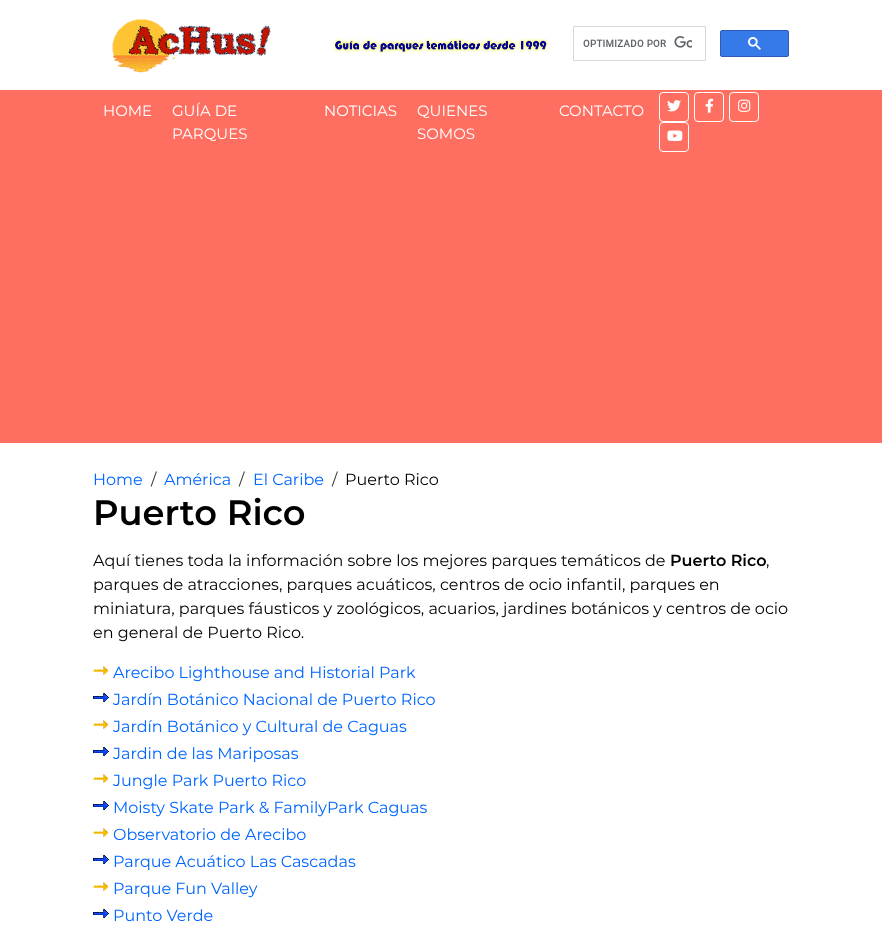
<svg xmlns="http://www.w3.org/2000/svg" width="882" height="935">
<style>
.a{font:15px Montserrat;fill:#fff}
.b{font:16px Montserrat;fill:#06f}
.c{font:16px Montserrat;fill:#353535}
.d{font:16px Montserrat;fill:#000}
.e{font:600 35.25px Montserrat;fill:#000}
.f{font:600 16px Montserrat;fill:#000}
</style>
<rect width="100%" height="100%" fill="#fff"/>
<image href="1.png" x="112" y="19" width="159" height="54"/>
<image href="2.png" x="333" y="38" width="216" height="15"/>
<path fill="none" stroke="#d9d9d9" d="M573.5 26.5h132v34H573.5z"/>
<image href="3.png" x="583" y="36" width="109" height="12"/>
<rect fill="#357ae8" stroke="#2f5bb7" x="720.5" y="30.5" width="68" height="26" rx="1.5"/>
<image href="4.png" x="748" y="37" width="13" height="13"/>
<path fill="#ff6f61" d="M0 90h882v353H0z"/>
<rect fill="none" stroke="#fff" x="659.5" y="92.5" width="29" height="29" rx="3.5"/>
<image href="5.png" x="667" y="100" width="14" height="12"/>
<rect fill="none" stroke="#fff" x="694.5" y="92.5" width="29" height="29" rx="3.5"/>
<image href="6.png" x="705" y="98" width="9" height="15"/>
<rect fill="none" stroke="#fff" x="729.5" y="92.5" width="29" height="29" rx="3.5"/>
<image href="7.png" x="738" y="99" width="13" height="13"/>
<rect fill="none" stroke="#fff" x="659.5" y="122.5" width="29" height="29" rx="3.5"/>
<image href="8.png" x="667" y="130" width="16" height="11"/>
<image href="9.png" x="93" y="666" width="15" height="9"/>
<image href="10.png" x="93" y="693" width="16" height="9"/>
<image href="9.png" x="93" y="720" width="15" height="9"/>
<image href="10.png" x="93" y="747" width="16" height="9"/>
<image href="9.png" x="93" y="774" width="15" height="9"/>
<image href="10.png" x="93" y="801" width="16" height="9"/>
<image href="9.png" x="93" y="828" width="15" height="9"/>
<image href="10.png" x="93" y="855" width="16" height="9"/>
<image href="9.png" x="93" y="882" width="15" height="9"/>
<image href="10.png" x="93" y="909" width="16" height="9"/>
<text class="a" x="103" y="116">HOME</text>
<text class="a" x="172" y="116">GUÍA DE</text>
<text class="a" x="172" y="139">PARQUES</text>
<text class="a" x="324" y="116">NOTICIAS</text>
<text class="a" x="417" y="116">QUIENES</text>
<text class="a" x="417" y="139">SOMOS</text>
<text class="a" x="559" y="116">CONTACTO</text>
<text class="b" x="93" y="485">Home</text>
<text class="c" x="151" y="485">/</text>
<text class="b" x="164" y="485">América</text>
<text class="c" x="239" y="485">/</text>
<text class="b" x="253" y="485">El Caribe</text>
<text class="c" x="332" y="485">/</text>
<text class="d" x="345" y="485">Puerto Rico</text>
<text class="e" x="93" y="525">Puerto Rico</text>
<text class="d" x="93" y="566">Aquí tienes toda la información sobre los mejores parques temáticos de</text>
<text class="f" x="670" y="566">Puerto Rico</text>
<text class="d" x="766" y="566">,</text>
<text class="d" x="93" y="590">parques de atracciones, parques acuáticos, centros de ocio infantil, parques en</text>
<text class="d" x="93" y="614">miniatura, parques fáusticos y zoológicos, acuarios, jardines botánicos y centros de ocio</text>
<text class="d" x="93" y="638">en general de Puerto Rico.</text>
<text class="b" x="113" y="678">Arecibo Lighthouse and Historial Park</text>
<text class="b" x="113" y="705">Jardín Botánico Nacional de Puerto Rico</text>
<text class="b" x="113" y="732">Jardín Botánico y Cultural de Caguas</text>
<text class="b" x="113" y="759">Jardin de las Mariposas</text>
<text class="b" x="113" y="786">Jungle Park Puerto Rico</text>
<text class="b" x="113" y="813">Moisty Skate Park &amp; FamilyPark Caguas</text>
<text class="b" x="113" y="840">Observatorio de Arecibo</text>
<text class="b" x="113" y="867">Parque Acuático Las Cascadas</text>
<text class="b" x="113" y="894">Parque Fun Valley</text>
<text class="b" x="113" y="921">Punto Verde</text>
</svg>
